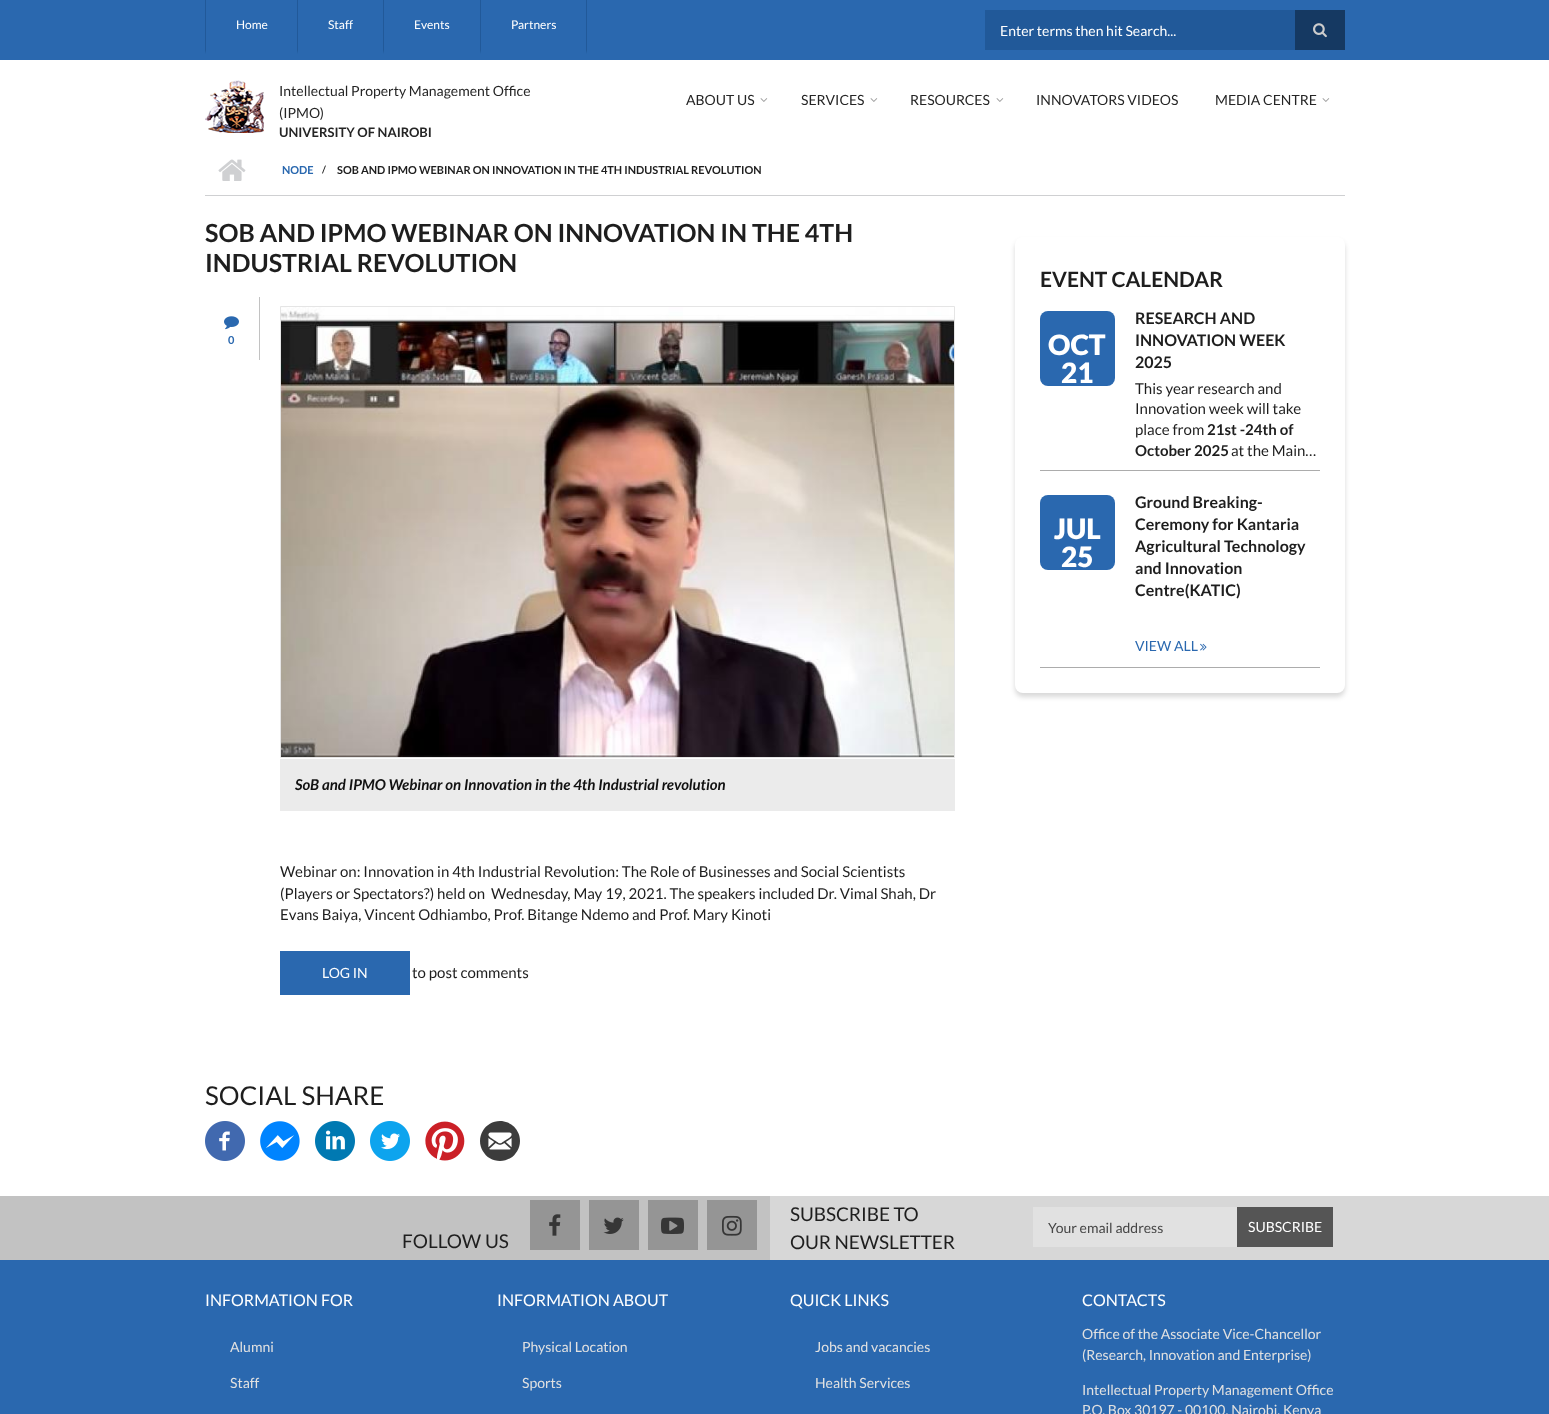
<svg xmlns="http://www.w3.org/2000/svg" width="1549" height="1414">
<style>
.a{font:12px Lato;fill:#fff}
.b{font:14px Lato;fill:#fff}
.c{font:14px Lato;fill:#252525}
.d{font:bold 13px Lato;fill:#252525}
.e{font:bold 11px Lato;fill:#2a68af}
.f{font:bold 10px Lato;fill:#1e1e1e}
.g{font:bold 11px Lato;fill:#1e1e1e}
.h{font:bold 25px Lato;fill:#1e1e1e}
.i{font:italic bold 15px Lato;fill:#111}
.j{font:15px Lato;fill:#1e1e1e}
.k{font:26px Lato;fill:#1e1e1e}
.l{font:bold 21px Lato;fill:#1e1e1e}
.m{font:900 28px Lato;fill:#fff}
.n{font:bold 16px Lato;fill:#1e1e1e}
.o{font:bold 15px Lato;fill:#1e1e1e}
.p{font:14px Lato;fill:#2a68af}
.q{font:19px Lato;fill:#1e1e1e}
.r{font:19px Lato;letter-spacing:-0.1px;fill:#1e1e1e}
.s{font:14px Lato;fill:#464646}
.t{font:16px Lato;fill:#fff}
.u{font:14px Lato;fill:#e1e1e1}
</style>
<rect width="100%" height="100%" fill="#fff"/>
<path fill="#2a68af" d="M0 0h1549v60H0z"/>
<path fill="#215999" d="M205 54v-54h1v50z"/>
<path fill="#215999" d="M297 54v-54h1v50z"/>
<path fill="#215999" d="M383 54v-54h1v50z"/>
<path fill="#215999" d="M587 0v54l-1-4v-50z"/>
<path fill="#215999" d="M480 54v-54h1v50z"/>
<path fill="#215999" d="M985 10h310v40H985z"/>
<path fill="#153962" d="M1295 10h50v40H1295z"/>
<image href="1.png" x="1313" y="23" width="14" height="15"/>
<image href="2.png" x="205" y="80" width="59" height="53"/>
<image href="3.png" x="760" y="98" width="8" height="4"/>
<image href="3.png" x="870" y="98" width="8" height="4"/>
<image href="3.png" x="996" y="98" width="8" height="4"/>
<image href="3.png" x="1322" y="98" width="8" height="4"/>
<path fill="#cfd0d2" d="M205 195h1140v1H205z"/>
<image href="4.png" x="218" y="159" width="28" height="22"/>
<path fill="#c2c2c2" d="M259 297h1v63H259z"/>
<image href="5.png" x="224" y="316" width="15" height="14"/>
<path fill="none" stroke="#e5e5e5" d="M280.5 306.5h674v451H280.5z"/>
<image href="6.png" x="281" y="307" width="673" height="450"/>
<path fill="#ebebeb" d="M280 759h675v52H280z"/>
<path fill="#2a68af" d="M280 951h130v44H280z"/>
<image href="7.png" x="205" y="1121" width="40" height="40"/>
<image href="8.png" x="260" y="1121" width="40" height="40"/>
<image href="9.png" x="315" y="1121" width="40" height="40"/>
<image href="10.png" x="370" y="1121" width="40" height="40"/>
<image href="11.png" x="425" y="1121" width="40" height="40"/>
<image href="12.png" x="480" y="1121" width="40" height="40"/>
<rect fill="#00000026" filter="blur(2.5px)" x="1015" y="241" width="330" height="456" rx="8"/>
<rect fill="#fff" x="1015" y="237" width="330" height="456" rx="8"/>
<path fill="#acacac" d="M1040 667h280v1H1040z"/>
<path fill="#acacac" d="M1040 470h280v1H1040z"/>
<rect fill="#2a68af" x="1040" y="311" width="75" height="75" rx="8"/>
<rect fill="#2a68af" x="1040" y="495" width="75" height="75" rx="8"/>
<image href="13.png" x="1200" y="643" width="7" height="8"/>
<path fill="#c2c2c2" d="M0 1196h770v64H0z"/>
<path fill="#d7d7d7" d="M770 1196h779v64H770z"/>
<path fill="#959595" d="M530 1200h50v50H530z"/>
<image href="14.png" x="549" y="1214" width="12" height="22"/>
<path fill="#959595" d="M589 1200h50v50H589z"/>
<image href="15.png" x="603" y="1217" width="21" height="17"/>
<path fill="#959595" d="M648 1200h50v50H648z"/>
<image href="16.png" x="661" y="1217" width="23" height="17"/>
<path fill="#959595" d="M707 1200h50v50H707z"/>
<image href="17.png" x="722" y="1215" width="20" height="21"/>
<path fill="#e1e1e1" d="M1033 1207h204v40H1033z"/>
<path fill="#555" d="M1237 1207h96v40H1237z"/>
<path fill="#2a68af" d="M0 1260h1549v154H0z"/>
<text class="a" x="236" y="29">Home</text>
<text class="a" x="328" y="29">Staff</text>
<text class="a" x="414" y="29">Events</text>
<text class="a" x="511" y="29">Partners</text>
<text class="b" x="1000" y="36">Enter terms then hit Search...</text>
<text class="c" x="279" y="96">Intellectual Property Management Office</text>
<text class="c" x="279" y="118">(IPMO)</text>
<text class="d" x="279" y="137">UNIVERSITY OF NAIROBI</text>
<text class="c" x="686" y="105">ABOUT US</text>
<text class="c" x="801" y="105">SERVICES</text>
<text class="c" x="910" y="105">RESOURCES</text>
<text class="c" x="1036" y="105">INNOVATORS VIDEOS</text>
<text class="c" x="1215" y="105">MEDIA CENTRE</text>
<text class="e" x="282" y="174">NODE</text>
<text class="f" x="322" y="173">/</text>
<text class="g" x="337" y="174">SOB AND IPMO WEBINAR ON INNOVATION IN THE 4TH INDUSTRIAL REVOLUTION</text>
<text class="h" x="205" y="242">SOB AND IPMO WEBINAR ON INNOVATION IN THE 4TH</text>
<text class="h" x="205" y="272">INDUSTRIAL REVOLUTION</text>
<text class="e" x="228" y="344">0</text>
<text class="i" x="295" y="790">SoB and IPMO Webinar on Innovation in the 4th Industrial revolution</text>
<text class="j" x="280" y="877">Webinar on: Innovation in 4th Industrial Revolution: The Role of Businesses and Social Scientists</text>
<text class="j" xml:space="preserve" x="280" y="899">(Players or Spectators?) held on  Wednesday, May 19, 2021. The speakers included Dr. Vimal Shah, Dr</text>
<text class="j" x="280" y="920">Evans Baiya, Vincent Odhiambo, Prof. Bitange Ndemo and Prof. Mary Kinoti</text>
<text class="b" x="322" y="978">LOG IN</text>
<text class="j" x="412" y="978">to post comments</text>
<text class="k" x="205" y="1105">SOCIAL SHARE</text>
<text class="l" x="1040" y="287">EVENT CALENDAR</text>
<text class="m" x="1048" y="355">OCT</text>
<text class="m" x="1061" y="383">21</text>
<text class="n" x="1135" y="324">RESEARCH AND</text>
<text class="n" x="1135" y="346">INNOVATION WEEK</text>
<text class="n" x="1135" y="368">2025</text>
<text class="j" x="1135" y="394">This year research and</text>
<text class="j" x="1135" y="414">Innovation week will take</text>
<text class="j" x="1135" y="435">place from</text>
<text class="o" x="1207" y="435">21st -24th of</text>
<text class="o" x="1135" y="456">October 2025</text>
<text class="j" x="1231" y="456">at the Main…</text>
<text class="m" x="1054" y="539">JUL</text>
<text class="m" x="1061" y="567">25</text>
<text class="n" x="1135" y="508">Ground Breaking-</text>
<text class="n" x="1135" y="530">Ceremony for Kantaria</text>
<text class="n" x="1135" y="552">Agricultural Technology</text>
<text class="n" x="1135" y="574">and Innovation</text>
<text class="n" x="1135" y="596">Centre(KATIC)</text>
<text class="p" x="1135" y="651">VIEW ALL</text>
<text class="q" x="402" y="1248">FOLLOW US</text>
<text class="r" x="790" y="1221">SUBSCRIBE TO</text>
<text class="r" x="790" y="1249">OUR NEWSLETTER</text>
<text class="s" x="1048" y="1233">Your email address</text>
<text class="b" x="1248" y="1232">SUBSCRIBE</text>
<text class="t" x="205" y="1306">INFORMATION FOR</text>
<text class="u" x="230" y="1352">Alumni</text>
<text class="u" x="230" y="1388">Staff</text>
<text class="t" x="497" y="1306">INFORMATION ABOUT</text>
<text class="u" x="522" y="1352">Physical Location</text>
<text class="u" x="522" y="1388">Sports</text>
<text class="t" x="790" y="1306">QUICK LINKS</text>
<text class="u" x="815" y="1352">Jobs and vacancies</text>
<text class="u" x="815" y="1388">Health Services</text>
<text class="t" x="1082" y="1306">CONTACTS</text>
<text class="u" x="1082" y="1339">Office of the Associate Vice-Chancellor</text>
<text class="u" x="1082" y="1360">(Research, Innovation and Enterprise)</text>
<text class="u" x="1082" y="1395">Intellectual Property Management Office</text>
<text class="u" x="1082" y="1415">P.O. Box 30197 - 00100, Nairobi, Kenya</text>
</svg>
